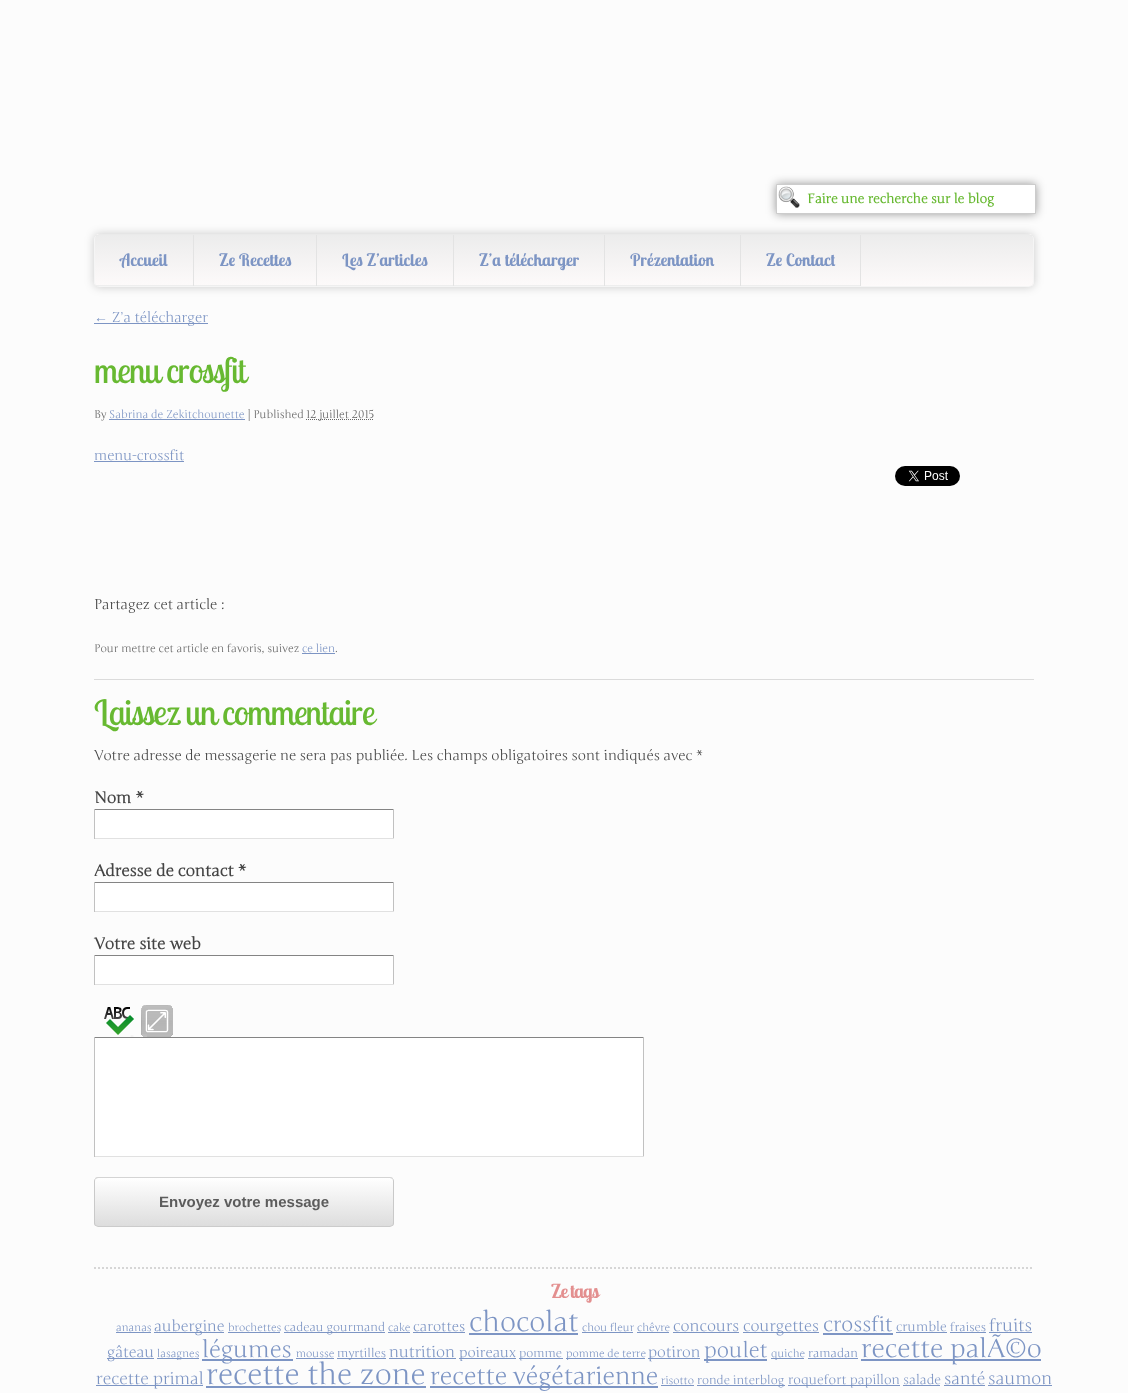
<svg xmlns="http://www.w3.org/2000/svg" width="1128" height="1393">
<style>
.a{font:bold 13px Junge;fill:#67b931}
.b{font:bold 17px Lobster Two;fill:#7d95c4}
.c{font:14px Liberation Sans;fill:#7d95c4}
.d{font:14px Junge;fill:#7d95c4}
.e{font:35px Lobster Two;letter-spacing:-1px;fill:#67b931}
.f{font:11px Junge;fill:#666}
.g{font:11px Junge;fill:#7d95c4}
.h{font:14px Junge;fill:#444}
.i{font:bold 16px Junge;fill:#444}
.j{font:bold 15px Liberation Sans;fill:#5c5c5c}
.k{font:bold 19px Lobster Two;letter-spacing:-1px;fill:#e38f8f}
.l{font:10.75px Junge;fill:#7d95c4}
.m{font:15px Junge;fill:#7d95c4}
.n{font:12px Junge;fill:#7d95c4}
.o{font:27.5px Junge;fill:#7d95c4}
.p{font:15.5px Junge;fill:#7d95c4}
.q{font:20.5px Junge;fill:#7d95c4}
.r{font:13px Junge;fill:#7d95c4}
.s{font:17px Junge;fill:#7d95c4}
.t{font:23px Junge;fill:#7d95c4}
.u{font:21px Junge;fill:#7d95c4}
.v{font:25.75px Junge;fill:#7d95c4}
.w{font:16.5px Junge;fill:#7d95c4}
.x{font:29.25px Junge;fill:#7d95c4}
.y{font:24.1px Junge;fill:#7d95c4}
</style>
<defs>
<clipPath id="clip1"><rect x="94" y="234" width="940" height="53" rx="5"/></clipPath>
<linearGradient id="g1" gradientUnits="userSpaceOnUse" x1="564" y1="184" x2="564" y2="235"><stop offset="0" stop-color="#ececec"/><stop offset="1" stop-color="#fdfafa"/></linearGradient>
<linearGradient id="g2" gradientUnits="userSpaceOnUse" x1="564" y1="235" x2="564" y2="286"><stop offset="0" stop-color="#ececec"/><stop offset="1" stop-color="#fdfafa"/></linearGradient>
<clipPath id="clip2"><rect x="94" y="1177" width="300" height="50" rx="4"/></clipPath>
<linearGradient id="g3" gradientUnits="userSpaceOnUse" x1="95" y1="1130" x2="95" y2="1178"><stop offset="0" stop-color="#fff"/><stop offset="1" stop-color="#ddd"/></linearGradient>
<linearGradient id="g4" gradientUnits="userSpaceOnUse" x1="95" y1="1178" x2="95" y2="1226"><stop offset="0" stop-color="#fff"/><stop offset="1" stop-color="#ddd"/></linearGradient>
<linearGradient id="g5" gradientUnits="userSpaceOnUse" x1="95" y1="1226" x2="95" y2="1274"><stop offset="0" stop-color="#fff"/><stop offset="1" stop-color="#ddd"/></linearGradient>
</defs>
<rect width="100%" height="100%" fill="#fcfcfc"/>
<path fill="#00000066" filter="blur(5px)" d="M776 184h260v30H776z"/>
<path fill="#fff" d="M777 185h258v28H777z"/>
<image href="1.png" x="778" y="186" width="22" height="22"/>
<path fill="none" stroke="#ccc" d="M776.5 184.5h259v29H776.5z"/>
<rect fill="#00000033" filter="blur(5px)" x="94" y="234" width="940" height="53" rx="5"/>
<g clip-path="url(#clip1)">
<path fill="url(#g1)" d="M94 234h940v1H94z"/>
<path fill="url(#g2)" d="M94 235h940v51H94z"/>
</g>
<path fill="none" stroke="#eaeaea" d="M96 236l3-1.5h930l3 1.5"/>
<path fill="none" stroke="#f5f5f5" d="M1032 236c1 .5 1.5 2 1.5 3v43c0 1-.5 2.5-1.5 3c-.5 1-2 1.5-3 1.5h-930c-1 0-2.5-.5-3-1.5c-1-.5-1.5-2-1.5-3v-43c0-1 .5-2.5 1.5-3"/>
<path fill="#e3e3e3" d="M193 235h1v51H193z"/>
<path fill="#eee" d="M95 285h98v1H95z"/>
<path fill="#e3e3e3" d="M316 235h1v51H316z"/>
<path fill="#eee" d="M194 285h122v1H194z"/>
<path fill="#e3e3e3" d="M453 235h1v51H453z"/>
<path fill="#eee" d="M317 285h136v1H317z"/>
<path fill="#e3e3e3" d="M604 235h1v51H604z"/>
<path fill="#eee" d="M454 285h150v1H454z"/>
<path fill="#e3e3e3" d="M740 235h1v51H740z"/>
<path fill="#eee" d="M605 285h135v1H605z"/>
<path fill="#e3e3e3" d="M860 235h1v51H860z"/>
<path fill="#eee" d="M741 285h119v1H741z"/>
<path fill="#7d95c4" d="M94 323h114v1H94z"/>
<path fill="#7d95c4" d="M109 419h136v1H109z"/>
<path fill="none" stroke="#666" stroke-dasharray="1 1" d="M306 419.5h68"/>
<path fill="#7d95c4" d="M94 461h90v1H94z"/>
<image href="2.png" x="895" y="466" width="65" height="20"/>
<path fill="#7d95c4" d="M302 653h33v1H302z"/>
<path fill="#dbdbdb" d="M94 679h940v1H94z"/>
<path fill="#fff" d="M95 810h298v28H95z"/>
<path fill="#848484" d="M94 809h300v1H94z"/>
<path fill="#c1c1c1" d="M393 809h1v30H393z"/>
<path fill="#e1e1e1" d="M94 838h300v1H94z"/>
<path fill="#c1c1c1" d="M94 809h1v30H94z"/>
<path fill="#fff" d="M95 883h298v28H95z"/>
<path fill="#848484" d="M94 882h300v1H94z"/>
<path fill="#c1c1c1" d="M393 882h1v30H393z"/>
<path fill="#e1e1e1" d="M94 911h300v1H94z"/>
<path fill="#c1c1c1" d="M94 882h1v30H94z"/>
<path fill="#fff" d="M95 956h298v28H95z"/>
<path fill="#848484" d="M94 955h300v1H94z"/>
<path fill="#c1c1c1" d="M393 955h1v30H393z"/>
<path fill="#e1e1e1" d="M94 984h300v1H94z"/>
<path fill="#c1c1c1" d="M94 955h1v30H94z"/>
<image href="3.png" x="104" y="1007" width="30" height="30"/>
<image href="4.png" x="141" y="1005" width="32" height="32"/>
<path fill="#fff" d="M95 1038h548v118H95z"/>
<path fill="#848484" d="M94 1037h550v1H94z"/>
<path fill="#c1c1c1" d="M643 1037h1v120H643z"/>
<path fill="#e1e1e1" d="M94 1156h550v1H94z"/>
<path fill="#c1c1c1" d="M94 1037h1v120H94z"/>
<g clip-path="url(#clip2)">
<path fill="url(#g3)" d="M94 1177h300v1H94z"/>
<path fill="url(#g4)" d="M94 1178h300v48H94z"/>
<path fill="url(#g5)" d="M94 1226h300v1H94z"/>
</g>
<path fill="none" stroke="#d4d4d4" d="M95.5 1178.5l2.5-1h292l2.5 1"/>
<path fill="none" stroke="#c9c9c9" d="M392.5 1178.5c.5 .5 1 1.5 1 2.5v42c0 1-.5 2-1 2.5"/>
<path fill="none" stroke="#cbcbcb" d="M392.5 1225.5l-2.5 1h-292l-2.5-1"/>
<path fill="none" stroke="#c9c9c9" d="M95.5 1225.5c-.5-.5-1-1.5-1-2.5v-42c0-1 .5-2 1-2.5"/>
<path fill="none" stroke="#d6d6d6" stroke-width="2" stroke-dasharray="2 2" d="M94 1268h940"/>
<path fill="#7d95c4" d="M116 1332h35v1H116z"/>
<path fill="#7d95c4" d="M154 1332h70v1H154z"/>
<path fill="#7d95c4" d="M228 1332h52v1H228z"/>
<path fill="#7d95c4" d="M284 1332h101v1H284z"/>
<path fill="#7d95c4" d="M388 1332h22v1H388z"/>
<path fill="#7d95c4" d="M413 1332h52v1H413z"/>
<path fill="#7d95c4" d="M469 1333h109v2H469z"/>
<path fill="#7d95c4" d="M582 1332h51v1H582z"/>
<path fill="#7d95c4" d="M637 1332h32v1H637z"/>
<path fill="#7d95c4" d="M673 1332h66v1H673z"/>
<path fill="#7d95c4" d="M743 1332h76v1H743z"/>
<path fill="#7d95c4" d="M823 1333h70v2H823z"/>
<path fill="#7d95c4" d="M896 1332h51v1H896z"/>
<path fill="#7d95c4" d="M950 1332h36v1H950z"/>
<path fill="#7d95c4" d="M989 1332h43v1H989z"/>
<path fill="#7d95c4" d="M107 1358h47v1H107z"/>
<path fill="#7d95c4" d="M157 1358h42v1H157z"/>
<path fill="#7d95c4" d="M202 1359h91v2H202z"/>
<path fill="#7d95c4" d="M296 1358h38v1H296z"/>
<path fill="#7d95c4" d="M337 1358h49v1H337z"/>
<path fill="#7d95c4" d="M389 1358h67v1H389z"/>
<path fill="#7d95c4" d="M459 1358h57v1H459z"/>
<path fill="#7d95c4" d="M519 1358h44v1H519z"/>
<path fill="#7d95c4" d="M566 1358h79v1H566z"/>
<path fill="#7d95c4" d="M648 1358h52v1H648z"/>
<path fill="#7d95c4" d="M704 1359h63v2H704z"/>
<path fill="#7d95c4" d="M771 1358h33v1H771z"/>
<path fill="#7d95c4" d="M808 1358h50v1H808z"/>
<path fill="#7d95c4" d="M861 1359h180v2H861z"/>
<path fill="#7d95c4" d="M96 1385h107v1H96z"/>
<path fill="#7d95c4" d="M206 1386h220v2H206z"/>
<path fill="#7d95c4" d="M430 1386h228v2H430z"/>
<path fill="#7d95c4" d="M661 1385h33v1H661z"/>
<path fill="#7d95c4" d="M697 1385h88v1H697z"/>
<path fill="#7d95c4" d="M788 1385h112v1H788z"/>
<path fill="#7d95c4" d="M944 1385h41v1H944z"/>
<path fill="#7d95c4" d="M988 1385h64v1H988z"/>
<path fill="#7d95c4" d="M903 1385h37v1H903z"/>
<text class="a" x="807" y="203">Faire une recherche sur le blog</text>
<text class="b" x="120" y="266">Accueil</text>
<text class="b" x="219" y="266">Ze Recettes</text>
<text class="b" x="342" y="266">Les Z’articles</text>
<text class="b" x="479" y="266">Z’a télécharger</text>
<text class="b" x="630" y="266">Prézentation</text>
<text class="b" x="766" y="266">Ze Contact</text>
<text class="c" x="94" y="322">←</text>
<text class="d" x="112" y="322">Z’a télécharger</text>
<text class="e" x="94" y="383">menu crossfit</text>
<text class="f" x="94" y="418">By</text>
<text class="g" x="109" y="418">Sabrina de Zekitchounette</text>
<text class="f" x="248" y="418">| Published</text>
<text class="f" x="306" y="418">12 juillet 2015</text>
<text class="d" x="94" y="460">menu-crossfit</text>
<text class="h" x="94" y="609">Partagez cet article :</text>
<text class="f" x="94" y="652">Pour mettre cet article en favoris, suivez</text>
<text class="g" x="302" y="652">ce lien</text>
<text class="f" x="335" y="652">.</text>
<text class="e" x="94" y="725">Laissez un commentaire</text>
<text class="h" x="94" y="760">Votre adresse de messagerie ne sera pas publiée. Les champs obligatoires sont indiqués avec *</text>
<text class="i" x="94" y="803">Nom *</text>
<text class="i" x="94" y="876">Adresse de contact *</text>
<text class="i" x="94" y="949">Votre site web</text>
<text class="j" x="159" y="1207">Envoyez votre message</text>
<text class="k" x="551" y="1298">Ze tags</text>
<text class="l" x="116" y="1331">ananas</text>
<text class="m" x="154" y="1331">aubergine</text>
<text class="l" x="228" y="1331">brochettes</text>
<text class="n" x="284" y="1331">cadeau gourmand</text>
<text class="l" x="388" y="1331">cake</text>
<text class="d" x="413" y="1331">carottes</text>
<text class="o" x="469" y="1331">chocolat</text>
<text class="l" x="582" y="1331">chou fleur</text>
<text class="l" x="637" y="1331">chêvre</text>
<text class="p" x="673" y="1331">concours</text>
<text class="p" x="743" y="1331">courgettes</text>
<text class="q" x="823" y="1331">crossfit</text>
<text class="r" x="896" y="1331">crumble</text>
<text class="n" x="950" y="1331">fraises</text>
<text class="s" x="989" y="1331">fruits</text>
<text class="m" x="107" y="1357">gâteau</text>
<text class="l" x="157" y="1357">lasagnes</text>
<text class="t" x="202" y="1357">légumes</text>
<text class="l" x="296" y="1357">mousse</text>
<text class="n" x="337" y="1357">myrtilles</text>
<text class="p" x="389" y="1357">nutrition</text>
<text class="d" x="459" y="1357">poireaux</text>
<text class="n" x="519" y="1357">pomme</text>
<text class="l" x="566" y="1357">pomme de terre</text>
<text class="m" x="648" y="1357">potiron</text>
<text class="u" x="704" y="1357">poulet</text>
<text class="l" x="771" y="1357">quiche</text>
<text class="n" x="808" y="1357">ramadan</text>
<text class="v" x="861" y="1357">recette palÃ©o</text>
<text class="w" x="96" y="1384">recette primal</text>
<text class="x" x="206" y="1384">recette the zone</text>
<text class="y" x="430" y="1384">recette végétarienne</text>
<text class="l" x="661" y="1384">risotto</text>
<text class="n" x="697" y="1384">ronde interblog</text>
<text class="r" x="788" y="1384">roquefort papillon salade</text>
<text class="w" x="944" y="1384">santé</text>
<text class="s" x="988" y="1384">saumon</text>
</svg>
